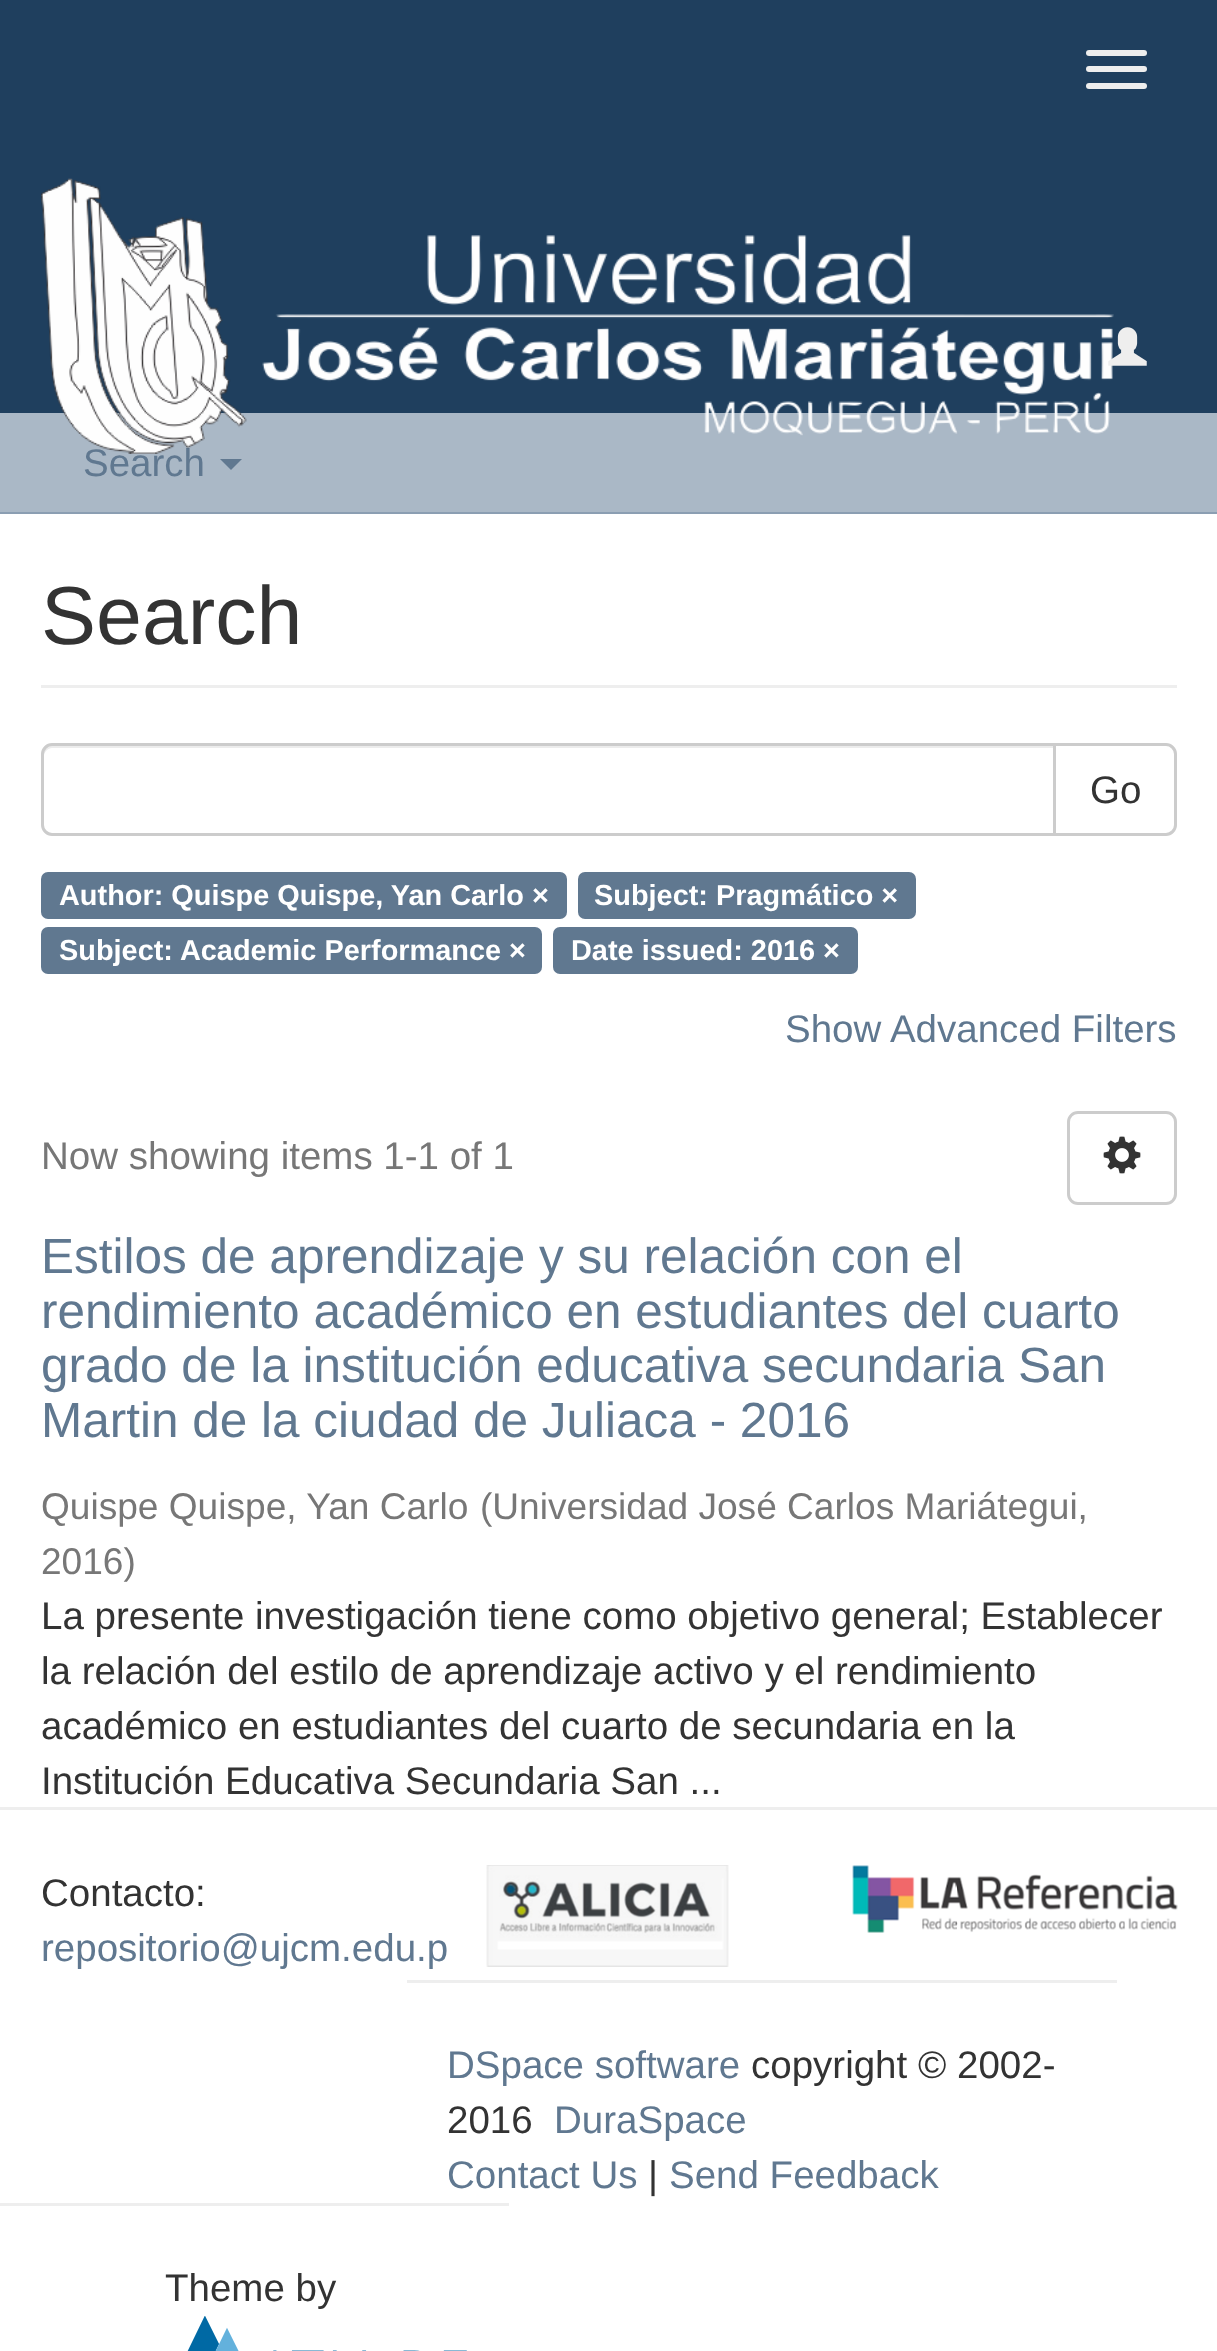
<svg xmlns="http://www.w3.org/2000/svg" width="1217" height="2351">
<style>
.a{font:38.5px Liberation Sans;fill:#607890}
.b{font:82.5px Liberation Sans;fill:#333}
.c{font:38.5px Liberation Sans;fill:#333}
.d{font:bold 28.9px Liberation Sans;fill:#fff}
.e{font:38.5px Liberation Sans;fill:#777}
.f{font:49.5px Liberation Sans;fill:#607890}
.g{font:37.1px Liberation Sans;fill:#777}
</style>
<rect width="100%" height="100%" fill="#aab8c6"/>
<path fill="#1f3f5e" d="M0 0h1217v413H0z"/>
<rect fill="#eee" x="1086" y="50" width="61" height="6" rx="3"/>
<rect fill="#eee" x="1086" y="66" width="61" height="6" rx="3"/>
<rect fill="#eee" x="1086" y="83" width="61" height="6" rx="3"/>
<path fill="#8b9eb2" d="M0 512h1217v2H0z"/>
<path fill="#607890" d="M220 459h22l-11 11z"/>
<path fill="#fff" d="M0 514h1217v1837H0z"/>
<path fill="#eee" d="M41 685h1136v3H41z"/>
<path fill="none" stroke="#ccc" stroke-width="3" d="M1054.5 744.5h111.5c5 0 9.5 4.5 9.5 9.5v71c0 5-4.5 9.5-9.5 9.5h-111.5z"/>
<path fill="#fff" d="M52 743h1004v93h-1004c-6 0-11-5-11-11v-71c0-6 5-11 11-11z"/>
<path fill="#ececec" d="M52 748h1001v-3h-1001c-4 0-8 4-8 8v3c0-4 4-8 8-8z"/>
<path fill="none" stroke="#ccc" stroke-width="3" d="M52 744.5h1002.5v90h-1002.5c-5 0-9.5-4.5-9.5-9.5v-71c0-5 4.5-9.5 9.5-9.5z"/>
<rect fill="#607890" x="41" y="872" width="526" height="47" rx="7"/>
<rect fill="#607890" x="578" y="872" width="338" height="47" rx="7"/>
<rect fill="#607890" x="41" y="927" width="501" height="47" rx="7"/>
<rect fill="#607890" x="553" y="927" width="305" height="47" rx="7"/>
<rect fill="none" stroke="#ccc" stroke-width="3" x="1068.5" y="1112.5" width="107" height="91" rx="9.5"/>
<image href="3.png" x="1103" y="1136" width="38" height="38"/>
<path fill="#eee" d="M0 1807h1217v3H0z"/>
<image href="4.png" x="450" y="1865" width="279" height="102"/>
<image href="5.png" x="852" y="1865" width="326" height="68"/>
<path fill="#eee" d="M407 1980h710v3H407z"/>
<path fill="#eee" d="M0 2203h509v3H0z"/>
<image href="6.png" x="187" y="2316" width="280" height="35"/>
<text class="a" x="83" y="476">Search</text>
<image href="1.png" x="41" y="178" width="1073" height="276"/>
<image href="2.png" x="1108" y="327" width="39" height="39"/>
<text class="b" x="41" y="644">Search</text>
<text class="c" x="1090" y="803">Go</text>
<text class="d" x="59" y="905">Author: Quispe Quispe, Yan Carlo ×</text>
<text class="d" x="594" y="905">Subject: Pragmático ×</text>
<text class="d" x="59" y="960">Subject: Academic Performance ×</text>
<text class="d" x="571" y="960">Date issued: 2016 ×</text>
<text class="a" x="785" y="1042">Show Advanced Filters</text>
<text class="e" x="41" y="1169">Now showing items 1-1 of 1</text>
<text class="f" x="41" y="1273">Estilos de aprendizaje y su relación con el</text>
<text class="f" x="41" y="1328">rendimiento académico en estudiantes del cuarto</text>
<text class="f" x="41" y="1382">grado de la institución educativa secundaria San</text>
<text class="f" x="41" y="1437">Martin de la ciudad de Juliaca - 2016</text>
<text class="g" x="41" y="1519">Quispe Quispe, Yan Carlo</text>
<text class="g" x="480" y="1519">(Universidad José Carlos Mariátegui,</text>
<text class="g" x="41" y="1574">2016)</text>
<text class="c" x="41" y="1629">La presente investigación tiene como objetivo general; Establecer</text>
<text class="c" x="41" y="1684">la relación del estilo de aprendizaje activo y el rendimiento</text>
<text class="c" x="41" y="1739">académico en estudiantes del cuarto de secundaria en la</text>
<text class="c" x="41" y="1794">Institución Educativa Secundaria San ...</text>
<text class="c" x="41" y="1906">Contacto:</text>
<text class="a" x="41" y="1961">repositorio@ujcm.edu.p</text>
<text class="a" x="447" y="2078">DSpace software</text>
<text class="c" x="751" y="2078">copyright © 2002-</text>
<text class="c" x="447" y="2133">2016</text>
<text class="a" x="554" y="2133">DuraSpace</text>
<text class="a" x="447" y="2188">Contact Us</text>
<text class="c" x="648" y="2188">|</text>
<text class="a" x="669" y="2188">Send Feedback</text>
<text class="c" x="165" y="2301">Theme by</text>
</svg>
